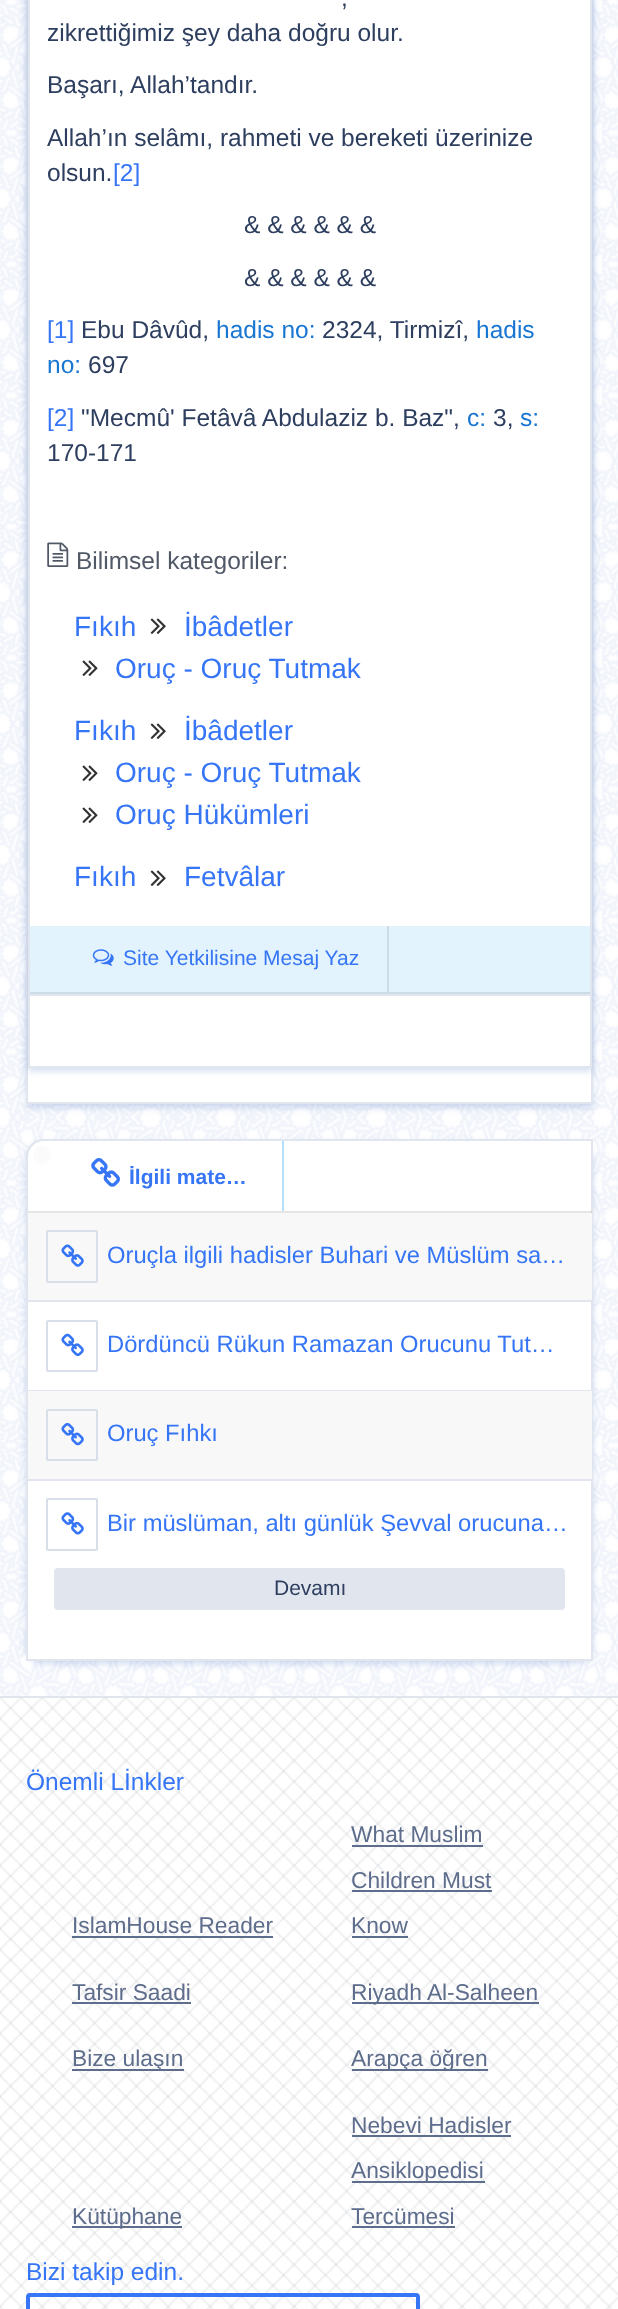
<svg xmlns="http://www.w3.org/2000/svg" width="618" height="2309">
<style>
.a{font:24.5px Liberation Sans;fill:#2d3e5f}
.b{font:24.5px Liberation Sans;fill:#3575f6}
.c{font:24.5px Liberation Sans;fill:#1976d2}
.d{font:24.5px Liberation Sans;fill:#515866}
.e{font:28px Liberation Sans;fill:#3575f6}
.f{font:21px Liberation Sans;fill:#3575f6}
.g{font:bold 21px Liberation Sans;fill:#3575f6}
.h{font:23.75px Liberation Sans;fill:#3575f6}
.i{font:21px Liberation Sans;fill:#2d3e5f}
.j{font:22.75px Liberation Sans;fill:#5e6d8c}
</style>
<defs>
<clipPath id="clip1"><path d="M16 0h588v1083h-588zm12-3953h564v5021h-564z" clip-rule="evenodd"/></clipPath>
</defs>
<rect width="100%" height="100%" fill="#fff"/>
<image href="1.png" x="0" y="0" width="618" height="1696"/>
<path fill="#1d4fb333" filter="blur(3.5px)" d="M26 -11h567v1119H26z"/>
<path fill="#fff" stroke="#e0e5ee" stroke-width="2" d="M27 -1h565v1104H27z"/>
<g clip-path="url(#clip1)">
<path fill="#1d4fb333" filter="blur(3.5px)" d="M28 -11h564v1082H28z"/>
</g>
<path fill="none" stroke="#e0e5ee" stroke-width="2" d="M29 -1h562v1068H29z"/>
<image href="2.png" x="47" y="542" width="22" height="25"/>
<image href="3.png" x="150" y="618" width="16" height="16"/>
<image href="4.png" x="82" y="660" width="16" height="16"/>
<image href="3.png" x="150" y="723" width="16" height="16"/>
<image href="4.png" x="82" y="765" width="16" height="16"/>
<image href="4.png" x="82" y="807" width="16" height="16"/>
<image href="3.png" x="150" y="870" width="16" height="16"/>
<path fill="#e3f3fd" d="M30 926h560v66H30z"/>
<path fill="#e0e5ee" d="M30 994h560v2H30z"/>
<path fill="#ccdbe4" d="M30 992h560v2H30z"/>
<path fill="#ccdbe4" d="M387 926h2v66H387z"/>
<image href="5.png" x="92" y="949" width="22" height="17"/>
<rect fill="#1d4fb333" filter="blur(3.5px)" x="26" y="1143" width="567" height="521" rx="18"/>
<path fill="#fff" stroke="#e0e5ee" stroke-width="2" d="M44 1140h548v520h-565v-503c0-9.5 7.5-17 17-17z"/>
<circle fill="#fbfbfb" cx="42" cy="1155" r="9"/>
<path fill="#0000001a" d="M28 1211h564v2H28z"/>
<path fill="#b3dffa" d="M282 1141h2v70H282z"/>
<image href="6.png" x="91" y="1158" width="29" height="29"/>
<path fill="#f8f8f8" d="M28 1213h564v87H28z"/>
<path fill="#e0e5ee" d="M28 1300h564v2H28z"/>
<rect fill="none" stroke="#d9dfe9" stroke-width="2" x="47" y="1231" width="50" height="51" rx="1"/>
<image href="7.png" x="61" y="1244" width="23" height="23"/>
<path fill="#e0e5ee" d="M28 1390h564v1H28z"/>
<rect fill="none" stroke="#d9dfe9" stroke-width="2" x="47" y="1321" width="50" height="50" rx="1"/>
<image href="8.png" x="61" y="1333" width="23" height="23"/>
<path fill="#f8f8f8" d="M28 1391h564v88H28z"/>
<path fill="#e0e5ee" d="M28 1479h564v2H28z"/>
<rect fill="none" stroke="#d9dfe9" stroke-width="2" x="47" y="1410" width="50" height="50" rx="1"/>
<image href="9.png" x="61" y="1423" width="23" height="23"/>
<rect fill="none" stroke="#d9dfe9" stroke-width="2" x="47" y="1499" width="50" height="51" rx="1"/>
<image href="10.png" x="61" y="1512" width="23" height="23"/>
<rect fill="#e0e5ee" stroke="#e0e5ee" stroke-width="2" x="55" y="1569" width="509" height="40" rx="3"/>
<image href="11.png" x="0" y="1698" width="618" height="611"/>
<path fill="#e0e5ee" d="M0 1696h618v2H0z"/>
<path fill="#5e6d8c" d="M72 1936h201v2H72z"/>
<path fill="#5e6d8c" d="M352 1845h131v2H352z"/>
<path fill="#5e6d8c" d="M352 1890h140v2H352z"/>
<path fill="#5e6d8c" d="M352 1936h56v2H352z"/>
<path fill="#5e6d8c" d="M72 2002h119v2H72z"/>
<path fill="#5e6d8c" d="M352 2002h187v2H352z"/>
<path fill="#5e6d8c" d="M72 2069h112v2H72z"/>
<path fill="#5e6d8c" d="M352 2069h136v2H352z"/>
<path fill="#5e6d8c" d="M72 2226h110v2H72z"/>
<path fill="#5e6d8c" d="M352 2135h159v2H352z"/>
<path fill="#5e6d8c" d="M352 2181h133v2H352z"/>
<path fill="#5e6d8c" d="M352 2226h103v2H352z"/>
<rect fill="none" stroke="#3575f6" stroke-width="4" x="28" y="2295" width="390" height="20" rx="2"/>
<text class="a" x="341" y="6">,</text>
<text class="a" x="47" y="41">zikrettiğimiz şey daha doğru olur.</text>
<text class="a" x="47" y="93">Başarı, Allah’tandır.</text>
<text class="a" x="47" y="146">Allah’ın selâmı, rahmeti ve bereketi üzerinize</text>
<text class="a" x="47" y="181">olsun.</text>
<text class="b" x="113" y="181">[2]</text>
<text class="a" x="244" y="233">&amp; &amp; &amp; &amp; &amp; &amp;</text>
<text class="a" x="244" y="286">&amp; &amp; &amp; &amp; &amp; &amp;</text>
<text class="b" x="47" y="338">[1]</text>
<text class="a" x="81" y="338">Ebu Dâvûd,</text>
<text class="c" x="216" y="338">hadis no:</text>
<text class="a" x="322" y="338">2324, Tirmizî,</text>
<text class="c" x="476" y="338">hadis</text>
<text class="c" x="47" y="373">no:</text>
<text class="a" x="88" y="373">697</text>
<text class="b" x="47" y="426">[2]</text>
<text class="a" x="81" y="426">"Mecmû' Fetâvâ Abdulaziz b. Baz",</text>
<text class="c" x="467" y="426">c:</text>
<text class="a" x="493" y="426">3,</text>
<text class="c" x="520" y="426">s:</text>
<text class="a" x="47" y="461">170-171</text>
<text class="d" x="76" y="569">Bilimsel kategoriler:</text>
<text class="e" x="74" y="636">Fıkıh</text>
<text class="e" x="184" y="636">İbâdetler</text>
<text class="e" x="115" y="678">Oruç - Oruç Tutmak</text>
<text class="e" x="74" y="740">Fıkıh</text>
<text class="e" x="184" y="740">İbâdetler</text>
<text class="e" x="115" y="782">Oruç - Oruç Tutmak</text>
<text class="e" x="115" y="824">Oruç Hükümleri</text>
<text class="e" x="74" y="886">Fıkıh</text>
<text class="e" x="184" y="886">Fetvâlar</text>
<text class="f" x="123" y="965">Site Yetkilisine Mesaj Yaz</text>
<text class="g" x="129" y="1184">İlgili mate…</text>
<text class="h" x="107" y="1263">Oruçla ilgili hadisler Buhari ve Müslüm sa…</text>
<text class="h" x="107" y="1352">Dördüncü Rükun Ramazan Orucunu Tut…</text>
<text class="h" x="107" y="1441">Oruç Fıhkı</text>
<text class="h" x="107" y="1531">Bir müslüman, altı günlük Şevval orucuna…</text>
<text class="i" x="274" y="1595">Devamı</text>
<text class="b" x="26" y="1790">Önemli Lİnkler</text>
<text class="j" x="72" y="1933">IslamHouse Reader</text>
<text class="j" x="351" y="1842">What Muslim</text>
<text class="j" x="351" y="1888">Children Must</text>
<text class="j" x="351" y="1933">Know</text>
<text class="j" x="72" y="2000">Tafsir Saadi</text>
<text class="j" x="351" y="2000">Riyadh Al-Salheen</text>
<text class="j" x="72" y="2066">Bize ulaşın</text>
<text class="j" x="351" y="2066">Arapça öğren</text>
<text class="j" x="72" y="2224">Kütüphane</text>
<text class="j" x="351" y="2133">Nebevi Hadisler</text>
<text class="j" x="351" y="2178">Ansiklopedisi</text>
<text class="j" x="351" y="2224">Tercümesi</text>
<text class="b" x="26" y="2280">Bizi takip edin.</text>
</svg>
